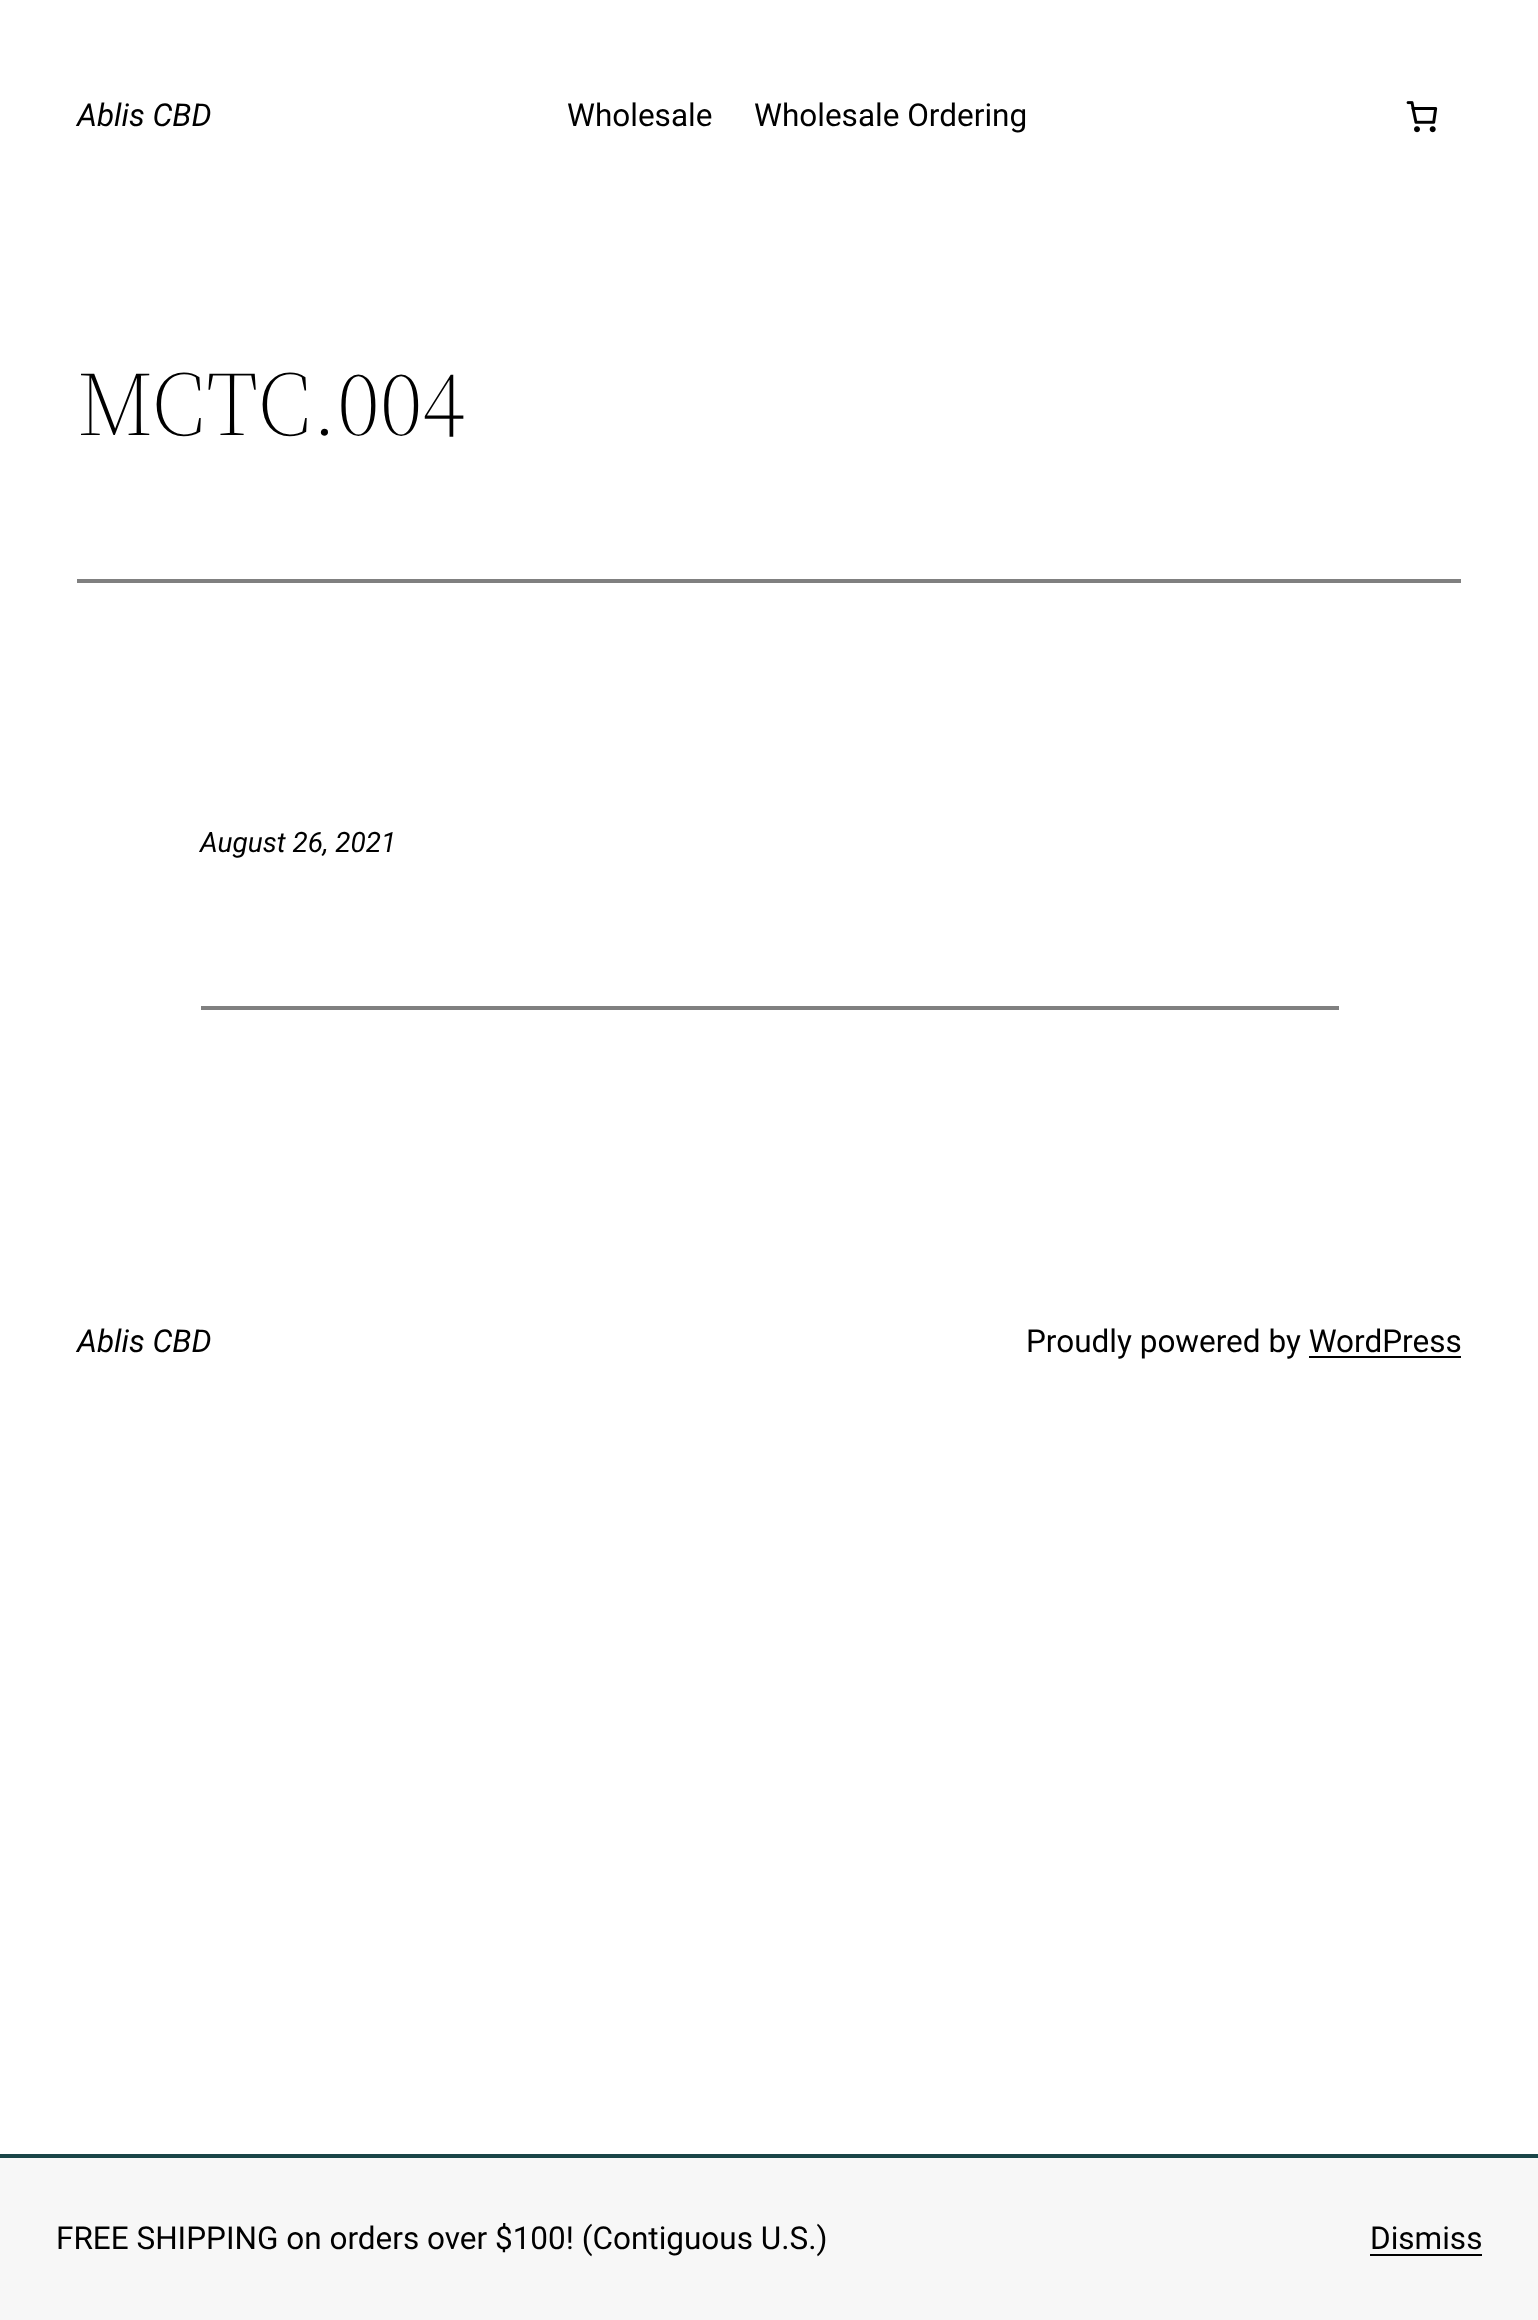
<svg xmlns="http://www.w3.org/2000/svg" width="1538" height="2320">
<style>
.a{font:italic 31.5px Roboto;fill:#000}
.b{font:31.5px Roboto;fill:#000}
.c{font:300 91px 'Source Serif 4';fill:#000}
.d{font:italic 28px Roboto;fill:#000}
</style>
<rect width="100%" height="100%" fill="#fff"/>
<image href="1.png" x="1406" y="101" width="32" height="32"/>
<path fill="#808080" d="M77 579h1384v4H77z"/>
<path fill="#808080" d="M201 1006h1138v4H201z"/>
<path fill="#000" d="M1309 1356h152v2H1309z"/>
<path fill="#f7f7f7" d="M0 2158h1538v162H0z"/>
<path fill="#1a4548" d="M0 2154h1538v4H0z"/>
<path fill="#000" d="M1370 2254h112v2H1370z"/>
<text class="a" x="77" y="126">Ablis CBD</text>
<text class="b" x="567" y="126">Wholesale</text>
<text class="b" x="754" y="126">Wholesale Ordering</text>
<text class="c" x="77" y="435">MCTC.004</text>
<text class="d" x="200" y="852">August 26, 2021</text>
<text class="a" x="77" y="1352">Ablis CBD</text>
<text class="b" x="1026" y="1352">Proudly powered by WordPress</text>
<text class="b" x="56" y="2249">FREE SHIPPING on orders over $100! (Contiguous U.S.)</text>
<text class="b" x="1370" y="2249">Dismiss</text>
</svg>
